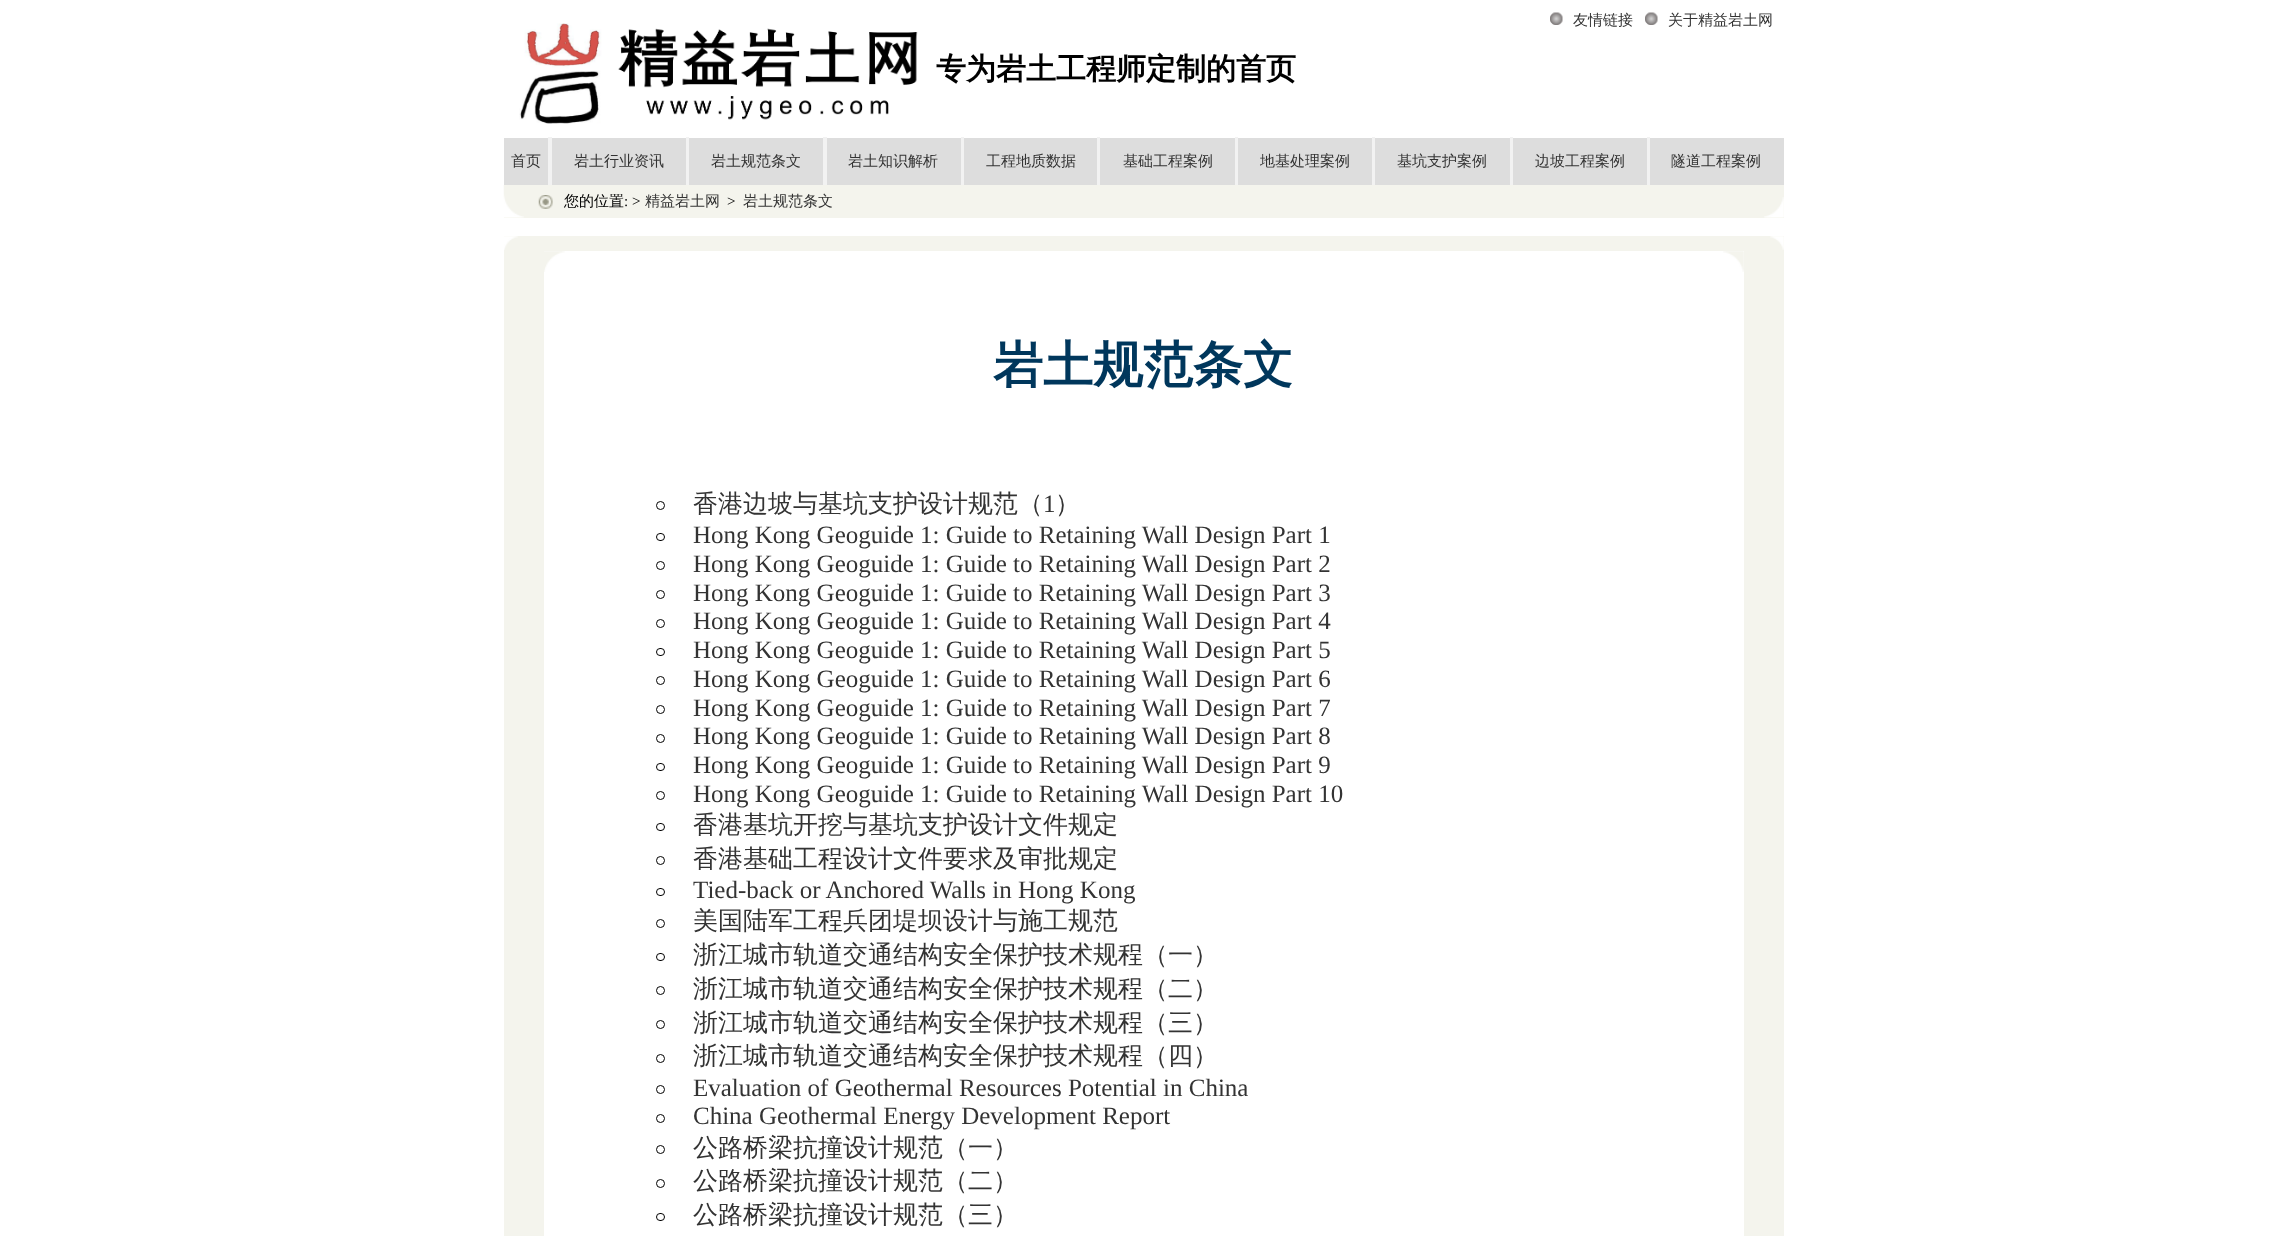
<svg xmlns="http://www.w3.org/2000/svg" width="2286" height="1236">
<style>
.a{font:500 15px WenQuanYi Zen Hei;fill:#333}
.b{font:bold 30px WenQuanYi Zen Hei;fill:#000}
.c{font:500 15px WenQuanYi Zen Hei;fill:#000}
.d{font:15px Liberation Serif;fill:#000}
.e{font:bold 50px WenQuanYi Zen Hei;fill:#00375c}
.f{font:500 25px WenQuanYi Zen Hei;fill:#333}
.g{font:25px Liberation Serif;fill:#333}
</style>
<rect width="100%" height="100%" fill="#fff"/>
<image href="1.png" x="1550" y="12" width="13" height="13"/>
<image href="1.png" x="1645" y="12" width="13" height="13"/>
<image href="2.png" x="519" y="23" width="399" height="101"/>
<path fill="#ddd" d="M504 138h1280v47H504z"/>
<path fill="#f2f2f2" d="M548 137h4v48H548z"/>
<path fill="#f2f2f2" d="M686 137h3v48H686z"/>
<path fill="#f2f2f2" d="M823 137h4v48H823z"/>
<path fill="#f2f2f2" d="M961 137h3v48H961z"/>
<path fill="#f2f2f2" d="M1097 137h3v48H1097z"/>
<path fill="#f2f2f2" d="M1235 137h3v48H1235z"/>
<path fill="#f2f2f2" d="M1372 137h3v48H1372z"/>
<path fill="#f2f2f2" d="M1510 137h3v48H1510z"/>
<path fill="#f2f2f2" d="M1647 137h3v48H1647z"/>
<path fill="#f4f4ed" d="M504 185h1280v33H504z"/>
<image href="3.png" x="503" y="185" width="21" height="33"/>
<image href="4.png" x="538" y="195" width="15" height="14"/>
<image href="5.png" x="1764" y="197" width="20" height="21"/>
<path fill="#f4f4ed" d="M504 236h1280v1000H504z"/>
<image href="6.png" x="504" y="236" width="14" height="14"/>
<image href="7.png" x="1770" y="236" width="14" height="14"/>
<path fill="#fff" d="M544 251h1200v985H544z"/>
<image href="8.png" x="544" y="251" width="21" height="21"/>
<image href="9.png" x="1723" y="251" width="21" height="21"/>
<circle fill="none" stroke="#000" cx="660.5" cy="505.5" r="4"/>
<rect fill="none" stroke="#000" x="656.5" y="533.5" width="8" height="7" rx="3.5"/>
<circle fill="none" stroke="#000" cx="660.5" cy="565.5" r="4"/>
<circle fill="none" stroke="#000" cx="660.5" cy="594.5" r="4"/>
<circle fill="none" stroke="#000" cx="660.5" cy="623.5" r="4"/>
<rect fill="none" stroke="#000" x="656.5" y="648.5" width="8" height="7" rx="3.5"/>
<circle fill="none" stroke="#000" cx="660.5" cy="680.5" r="4"/>
<circle fill="none" stroke="#000" cx="660.5" cy="709.5" r="4"/>
<circle fill="none" stroke="#000" cx="660.5" cy="738.5" r="4"/>
<rect fill="none" stroke="#000" x="656.5" y="763.5" width="8" height="7" rx="3.5"/>
<circle fill="none" stroke="#000" cx="660.5" cy="795.5" r="4"/>
<rect fill="none" stroke="#000" x="656.5" y="823.5" width="8" height="7" rx="3.5"/>
<circle fill="none" stroke="#000" cx="660.5" cy="860.5" r="4"/>
<rect fill="none" stroke="#000" x="656.5" y="888.5" width="8" height="7" rx="3.5"/>
<circle fill="none" stroke="#000" cx="660.5" cy="923.5" r="4"/>
<rect fill="none" stroke="#000" x="656.5" y="953.5" width="8" height="7" rx="3.5"/>
<circle fill="none" stroke="#000" cx="660.5" cy="990.5" r="4"/>
<circle fill="none" stroke="#000" cx="660.5" cy="1024.5" r="4"/>
<circle fill="none" stroke="#000" cx="660.5" cy="1058.5" r="4"/>
<circle fill="none" stroke="#000" cx="660.5" cy="1089.5" r="4"/>
<circle fill="none" stroke="#000" cx="660.5" cy="1118.5" r="4"/>
<circle fill="none" stroke="#000" cx="660.5" cy="1149.5" r="4"/>
<circle fill="none" stroke="#000" cx="660.5" cy="1183.5" r="4"/>
<rect fill="none" stroke="#000" x="656.5" y="1213.5" width="8" height="7" rx="3.5"/>
<text class="a" x="1573" y="25">友情链接</text>
<text class="a" x="1668" y="25">关于精益岩土网</text>
<text class="b" x="936" y="79">专为岩土工程师定制的首页</text>
<text class="a" x="511" y="166">首页</text>
<text class="a" x="574" y="166">岩土行业资讯</text>
<text class="a" x="711" y="166">岩土规范条文</text>
<text class="a" x="848" y="166">岩土知识解析</text>
<text class="a" x="986" y="166">工程地质数据</text>
<text class="a" x="1123" y="166">基础工程案例</text>
<text class="a" x="1260" y="166">地基处理案例</text>
<text class="a" x="1397" y="166">基坑支护案例</text>
<text class="a" x="1535" y="166">边坡工程案例</text>
<text class="a" x="1671" y="166">隧道工程案例</text>
<text class="c" x="564" y="206">您的位置</text>
<text class="d" x="624" y="206">: &gt;</text>
<text class="a" x="645" y="206">精益岩土网</text>
<text class="d" x="727" y="206">&gt;</text>
<text class="a" x="743" y="206">岩土规范条文</text>
<text class="e" x="993" y="382">岩土规范条文</text>
<text class="f" x="693" y="512">香港边坡与基坑支护设计规范（</text>
<text class="g" x="1043" y="512">1</text>
<text class="f" x="1055" y="512">）</text>
<text class="g" x="693" y="543">Hong Kong Geoguide 1: Guide to Retaining Wall Design Part 1</text>
<text class="g" x="693" y="572">Hong Kong Geoguide 1: Guide to Retaining Wall Design Part 2</text>
<text class="g" x="693" y="601">Hong Kong Geoguide 1: Guide to Retaining Wall Design Part 3</text>
<text class="g" x="693" y="629">Hong Kong Geoguide 1: Guide to Retaining Wall Design Part 4</text>
<text class="g" x="693" y="658">Hong Kong Geoguide 1: Guide to Retaining Wall Design Part 5</text>
<text class="g" x="693" y="687">Hong Kong Geoguide 1: Guide to Retaining Wall Design Part 6</text>
<text class="g" x="693" y="716">Hong Kong Geoguide 1: Guide to Retaining Wall Design Part 7</text>
<text class="g" x="693" y="744">Hong Kong Geoguide 1: Guide to Retaining Wall Design Part 8</text>
<text class="g" x="693" y="773">Hong Kong Geoguide 1: Guide to Retaining Wall Design Part 9</text>
<text class="g" x="693" y="802">Hong Kong Geoguide 1: Guide to Retaining Wall Design Part 10</text>
<text class="f" x="693" y="833">香港基坑开挖与基坑支护设计文件规定</text>
<text class="f" x="693" y="867">香港基础工程设计文件要求及审批规定</text>
<text class="g" x="693" y="898">Tied-back or Anchored Walls in Hong Kong</text>
<text class="f" x="693" y="929">美国陆军工程兵团堤坝设计与施工规范</text>
<text class="f" x="693" y="963">浙江城市轨道交通结构安全保护技术规程（一）</text>
<text class="f" x="693" y="997">浙江城市轨道交通结构安全保护技术规程（二）</text>
<text class="f" x="693" y="1031">浙江城市轨道交通结构安全保护技术规程（三）</text>
<text class="f" x="693" y="1064">浙江城市轨道交通结构安全保护技术规程（四）</text>
<text class="g" x="693" y="1096">Evaluation of Geothermal Resources Potential in China</text>
<text class="g" x="693" y="1124">China Geothermal Energy Development Report</text>
<text class="f" x="693" y="1156">公路桥梁抗撞设计规范（一）</text>
<text class="f" x="693" y="1189">公路桥梁抗撞设计规范（二）</text>
<text class="f" x="693" y="1223">公路桥梁抗撞设计规范（三）</text>
</svg>
